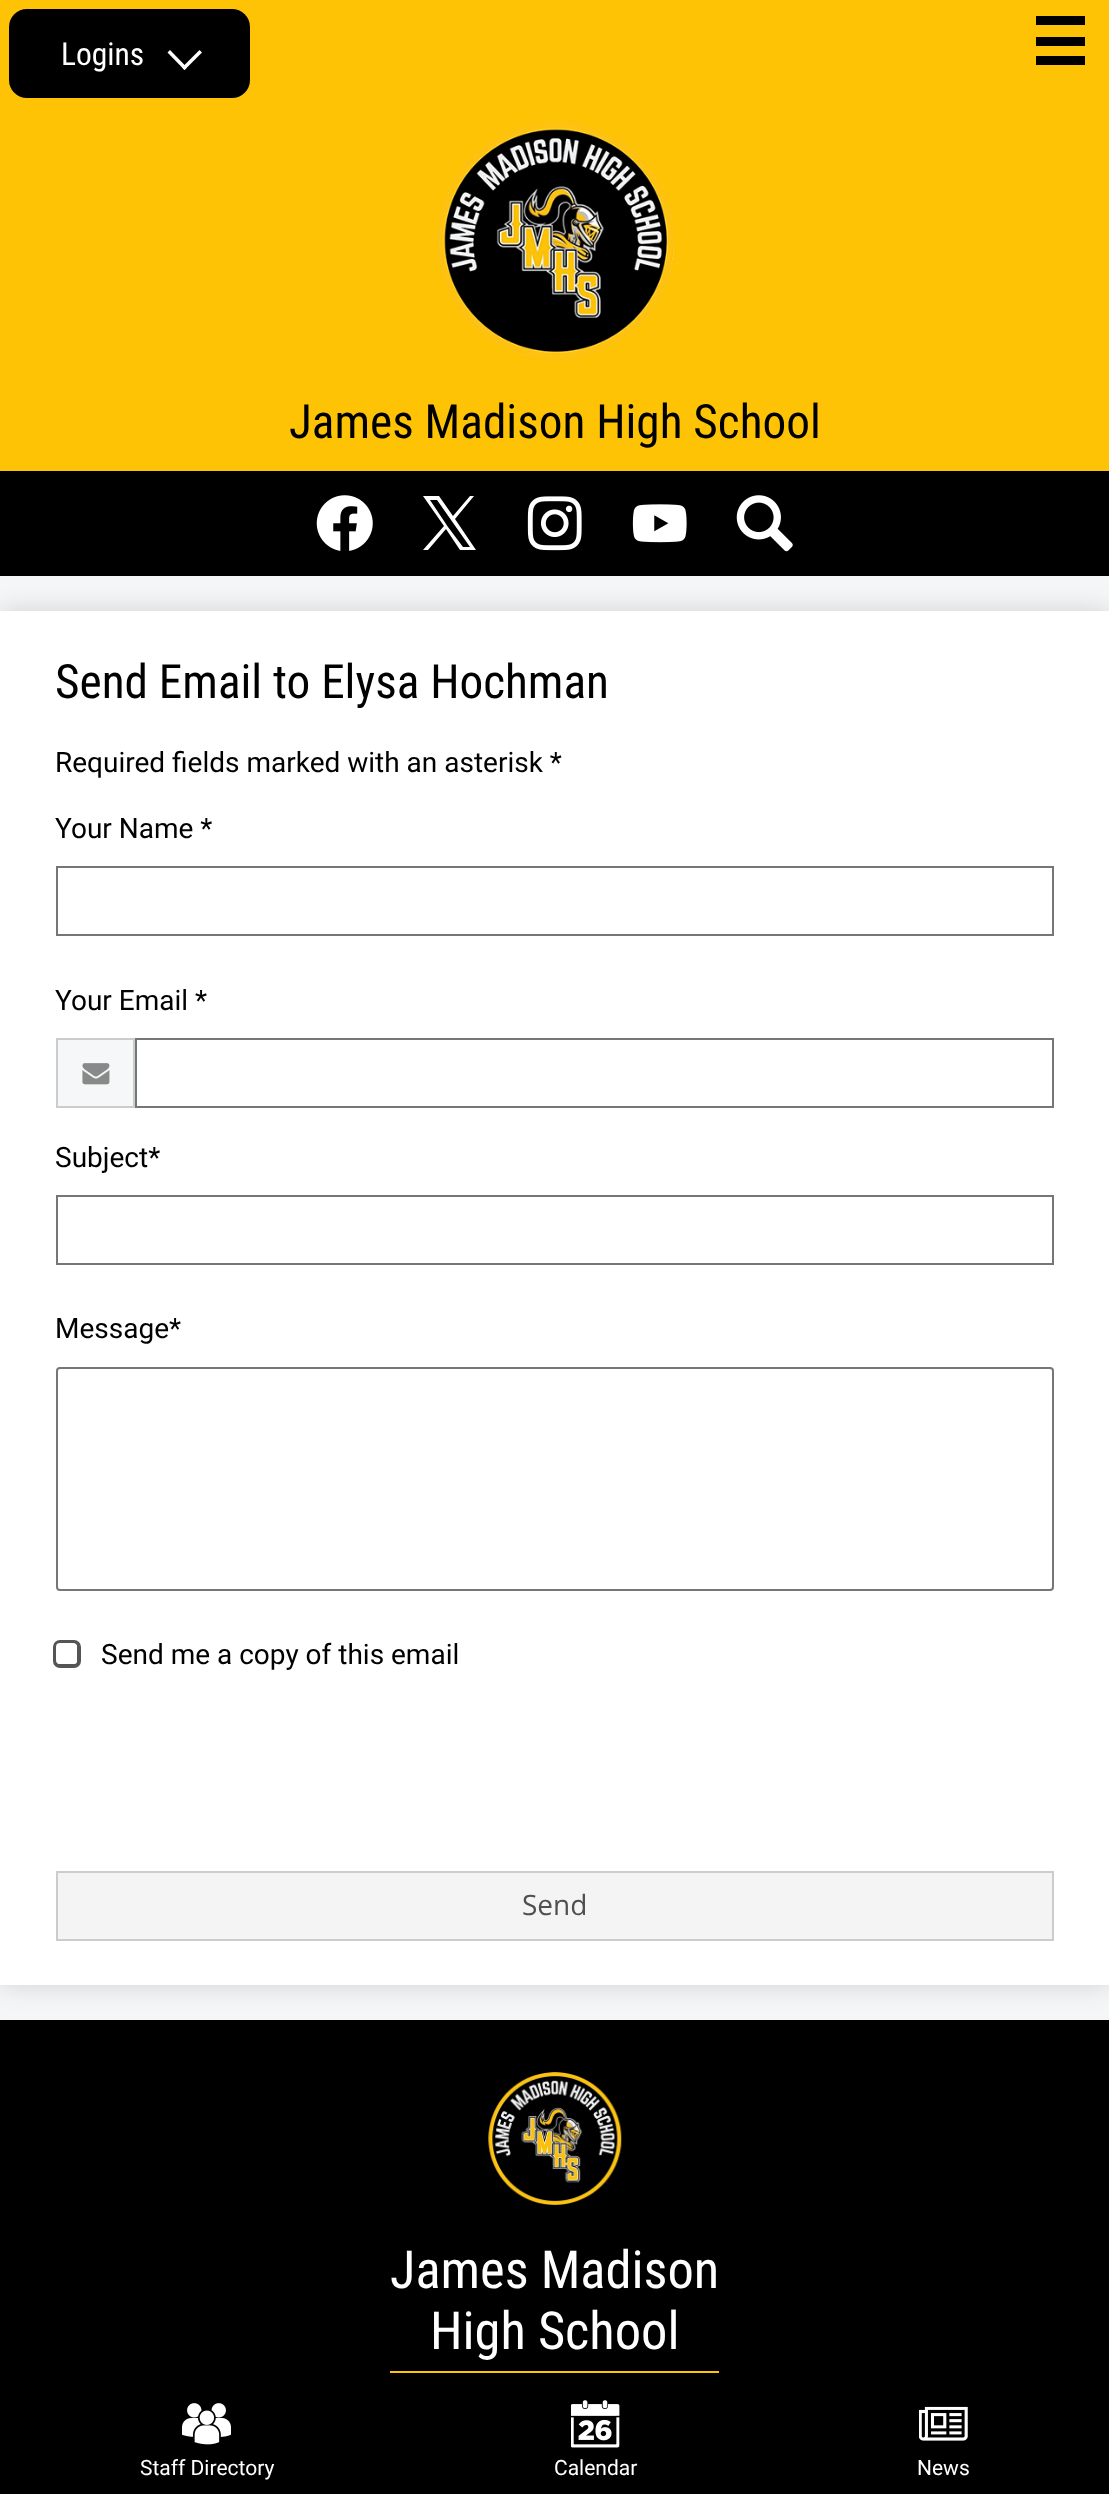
<svg xmlns="http://www.w3.org/2000/svg" width="1109" height="2494">
<style>
.a{font:31.5px Roboto Condensed;fill:#fff}
.b{font:47.25px Roboto Condensed;fill:#000}
.c{font:28px Roboto;fill:#000}
.d{font:28px Open Sans;fill:#4f4f4f}
.e{font:52.5px Roboto Condensed;fill:#fff}
.f{font:21px Roboto;fill:#fff}
</style>
<rect width="100%" height="100%" fill="#f5f6f7"/>
<path fill="#ffc306" d="M0 0h1109v471H0z"/>
<path fill="#000" d="M1036 16h49v9H1036z"/>
<path fill="#000" d="M1036 37h49v9H1036z"/>
<path fill="#000" d="M1036 56h49v9H1036z"/>
<path fill="#000" d="M0 2020h1109v474H0z"/>
<path fill="#00000026" filter="blur(13px)" d="M0 611h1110v1374H0z"/>
<path fill="#000" d="M0 471h1109v105H0z"/>
<image href="1.png" x="316" y="495" width="57" height="56"/>
<path fill="#fff" d="M455 519l19-23h-4l-17 20l-14-20h-16l21 30l-21 24h5l18-21l14 21h16zm-7 8l-18-27h7l33 47h-7z"/>
<image href="2.png" x="527" y="496" width="55" height="55"/>
<image href="3.png" x="632" y="504" width="55" height="39"/>
<image href="4.png" x="736" y="495" width="57" height="57"/>
<rect fill="#000" x="9" y="9" width="241" height="89" rx="18"/>
<path fill="#fff" d="M202 52.5l-17.5 17.5l-2.5-2.5l17.5-17.5z"/>
<path fill="#fff" d="M187 67.5l-2.5 2.5l-17-17.5l2.5-2.5z"/>
<image href="5.png" x="437" y="122" width="237" height="237"/>
<path fill="#fff" d="M0 611h1109v1374H0z"/>
<path fill="none" stroke="#767676" stroke-width="2" d="M57 867h996v68H57z"/>
<path fill="#f6f7f8" stroke="#ccc" stroke-width="2" d="M57 1039h77v68H57z"/>
<image href="6.png" x="82" y="1063" width="28" height="22"/>
<path fill="none" stroke="#767676" stroke-width="2" d="M136 1039h917v68H136z"/>
<path fill="none" stroke="#767676" stroke-width="2" d="M57 1196h996v68H57z"/>
<rect fill="none" stroke="#767676" stroke-width="2" x="57" y="1368" width="996" height="222" rx="3"/>
<rect fill="none" stroke="#555" stroke-width="4" x="55" y="1642" width="24" height="24" rx="5"/>
<rect fill="#fff" x="56" y="1643" width="21" height="21" rx="4"/>
<path fill="#f4f4f4" stroke="#ccc" stroke-width="2" d="M57 1872h996v68H57z"/>
<image href="7.png" x="488" y="2072" width="134" height="133"/>
<path fill="#ffc306" d="M390 2371h329v2H390z"/>
<image href="8.png" x="182" y="2403" width="49" height="42"/>
<image href="9.png" x="571" y="2400" width="49" height="48"/>
<image href="10.png" x="919" y="2406" width="49" height="35"/>
<text class="a" x="61" y="65">Logins</text>
<text class="b" x="289" y="438">James Madison High School</text>
<text class="b" x="55" y="698">Send Email to Elysa Hochman</text>
<text class="c" x="55" y="772">Required fields marked with an asterisk *</text>
<text class="c" x="55" y="838">Your Name *</text>
<text class="c" x="55" y="1010">Your Email *</text>
<text class="c" x="55" y="1167">Subject*</text>
<text class="c" x="55" y="1338">Message*</text>
<text class="c" x="101" y="1664">Send me a copy of this email</text>
<text class="d" x="522" y="1915">Send</text>
<text class="e" x="390" y="2288">James Madison</text>
<text class="e" x="430" y="2349">High School</text>
<text class="f" x="140" y="2475">Staff Directory</text>
<text class="f" x="554" y="2475">Calendar</text>
<text class="f" x="917" y="2475">News</text>
</svg>
